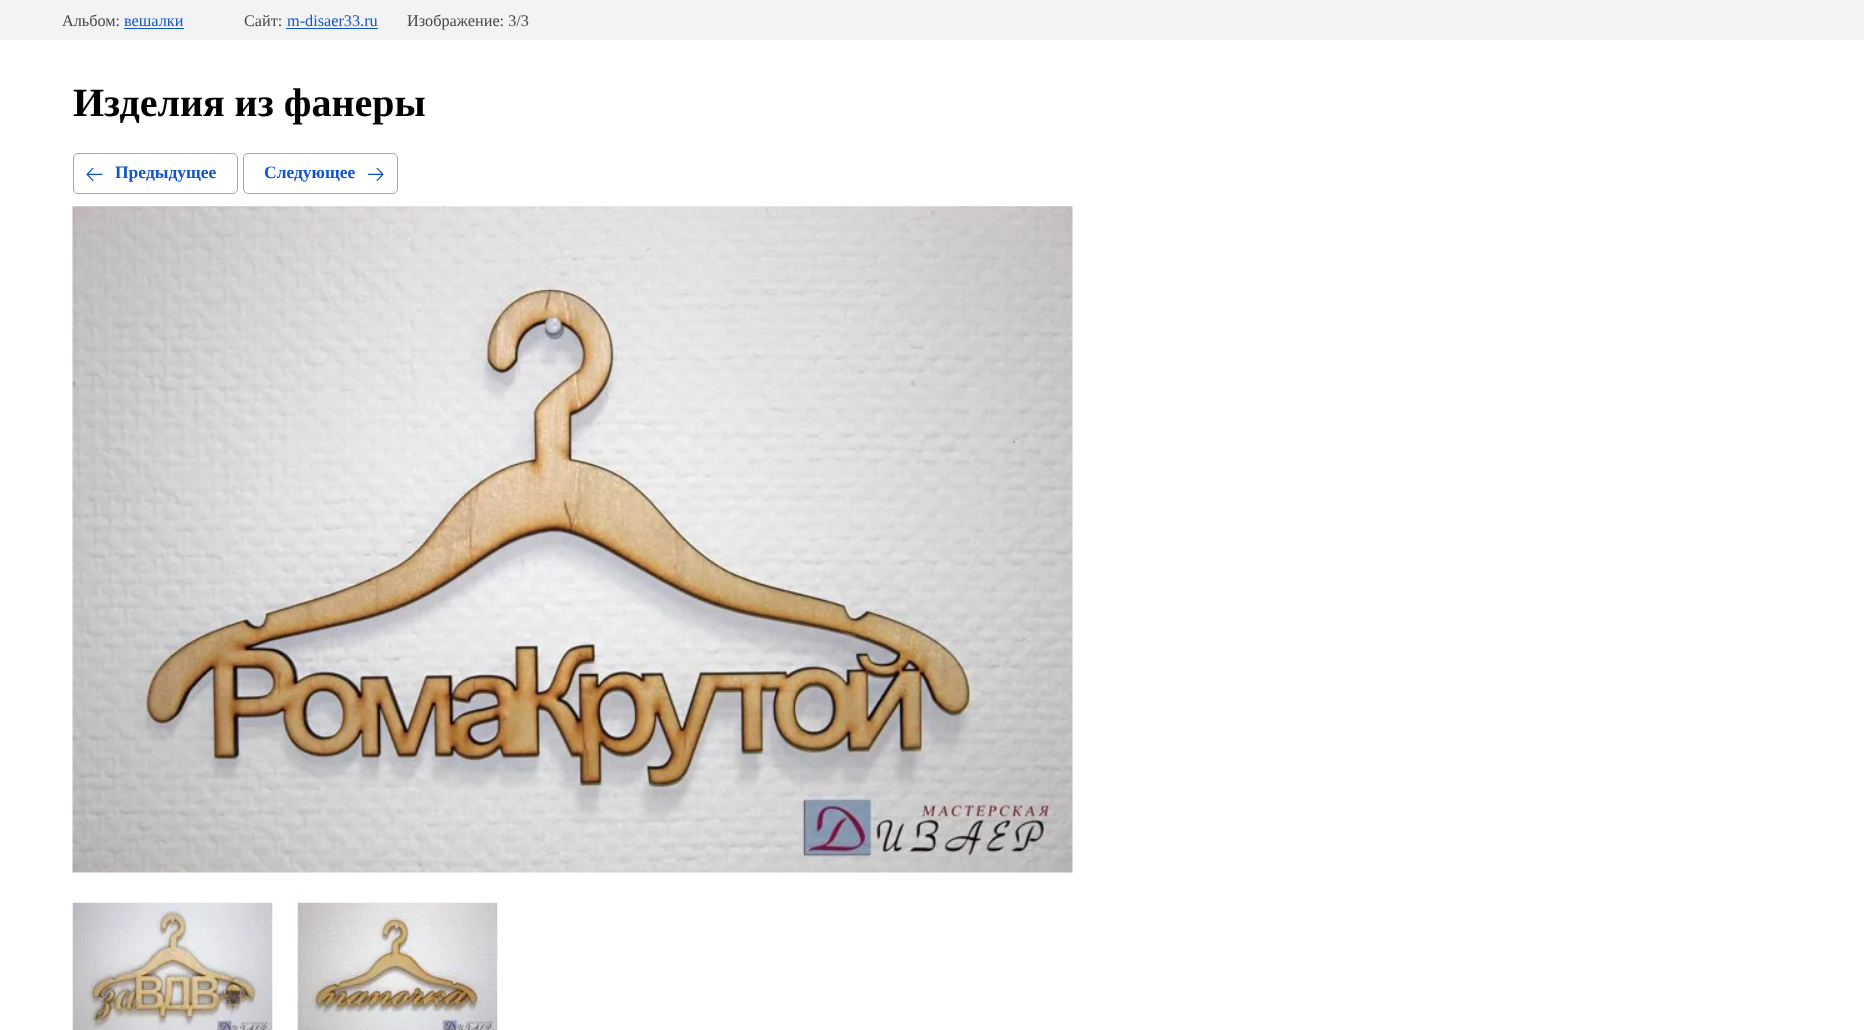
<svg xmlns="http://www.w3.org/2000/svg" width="1864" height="1030">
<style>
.a{font:16.25px Liberation Serif;fill:#484848}
.b{font:16.25px Liberation Serif;fill:#15c}
.c{font:bold 40px Liberation Serif;fill:#000}
.d{font:bold 17.5px Liberation Serif;fill:#15c}
</style>
<rect width="100%" height="100%" fill="#fff"/>
<path fill="#f3f3f3" d="M0 0h1864v40H0z"/>
<path fill="#15c" d="M124 28h60v1H124z"/>
<path fill="#15c" d="M286 28h92v1H286z"/>
<rect fill="none" stroke="#88aae6" x="73.5" y="153.5" width="164" height="40" rx="4.5"/>
<image href="1.png" x="86" y="168" width="17" height="13"/>
<rect fill="none" stroke="#88aae6" x="243.5" y="153.5" width="154" height="40" rx="4.5"/>
<image href="2.png" x="368" y="168" width="16" height="13"/>
<image href="3.png" x="72" y="206" width="1001" height="667"/>
<image href="4.png" x="72" y="902" width="201" height="128"/>
<image href="5.png" x="297" y="902" width="201" height="128"/>
<text class="a" x="62" y="26">Альбом:</text>
<text class="b" x="124" y="26">вешалки</text>
<text class="a" x="244" y="26">Сайт:</text>
<text class="b" x="287" y="26">m-disaer33.ru</text>
<text class="a" x="407" y="26">Изображение: 3/3</text>
<text class="c" x="73" y="116">Изделия из фанеры</text>
<text class="d" x="115" y="178">Предыдущее</text>
<text class="d" x="264" y="178">Следующее</text>
</svg>
